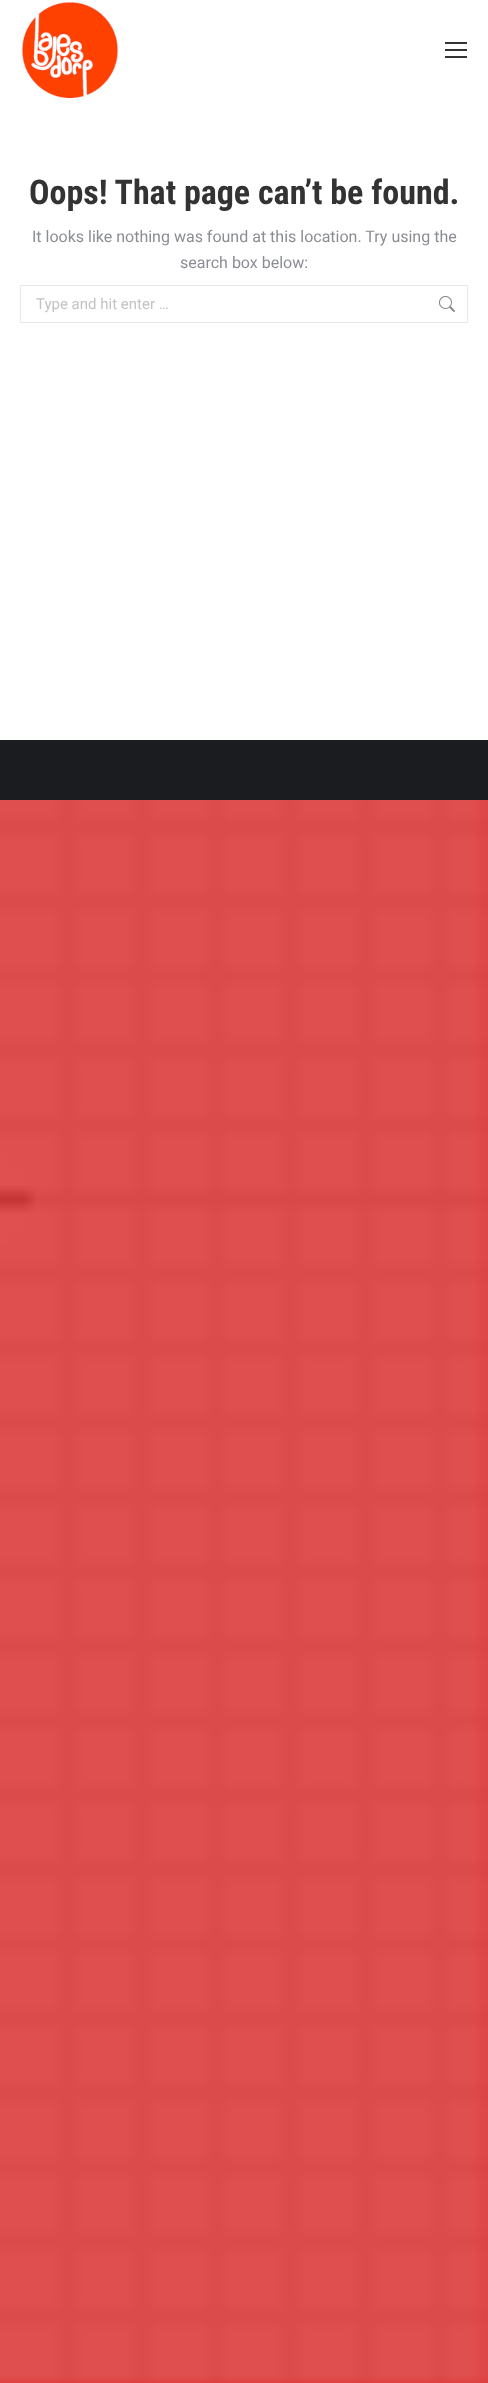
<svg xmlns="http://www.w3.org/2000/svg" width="488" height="2383">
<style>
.a{font:bold 34px Roboto Condensed;fill:#333}
.b{font:16px Roboto;fill:#8b8d94}
.c{font:15px Roboto;fill:#c2c3c6}
</style>
<rect width="100%" height="100%" fill="#d33"/>
<image href="1.png" x="0" y="800" width="488" height="1583"/>
<path fill="#fff" d="M0 0h488v740H0z"/>
<image href="2.png" x="22" y="2" width="96" height="97"/>
<path fill="#333" d="M445 42h22v2H445z"/>
<path fill="#333" d="M445 49h22v2H445z"/>
<path fill="#333" d="M445 56h22v2H445z"/>
<path fill="none" stroke="#e7e7e7" d="M20.5 285.5h447v37H20.5z"/>
<image href="3.png" x="439" y="296" width="16" height="16"/>
<path fill="#1a1c20" d="M0 740h488v60H0z"/>
<text class="a" x="29" y="204">Oops! That page can’t be found.</text>
<text class="b" x="32" y="242">It looks like nothing was found at this location. Try using the</text>
<text class="b" x="180" y="268">search box below:</text>
<text class="c" x="36" y="309">Type and hit enter …</text>
</svg>
